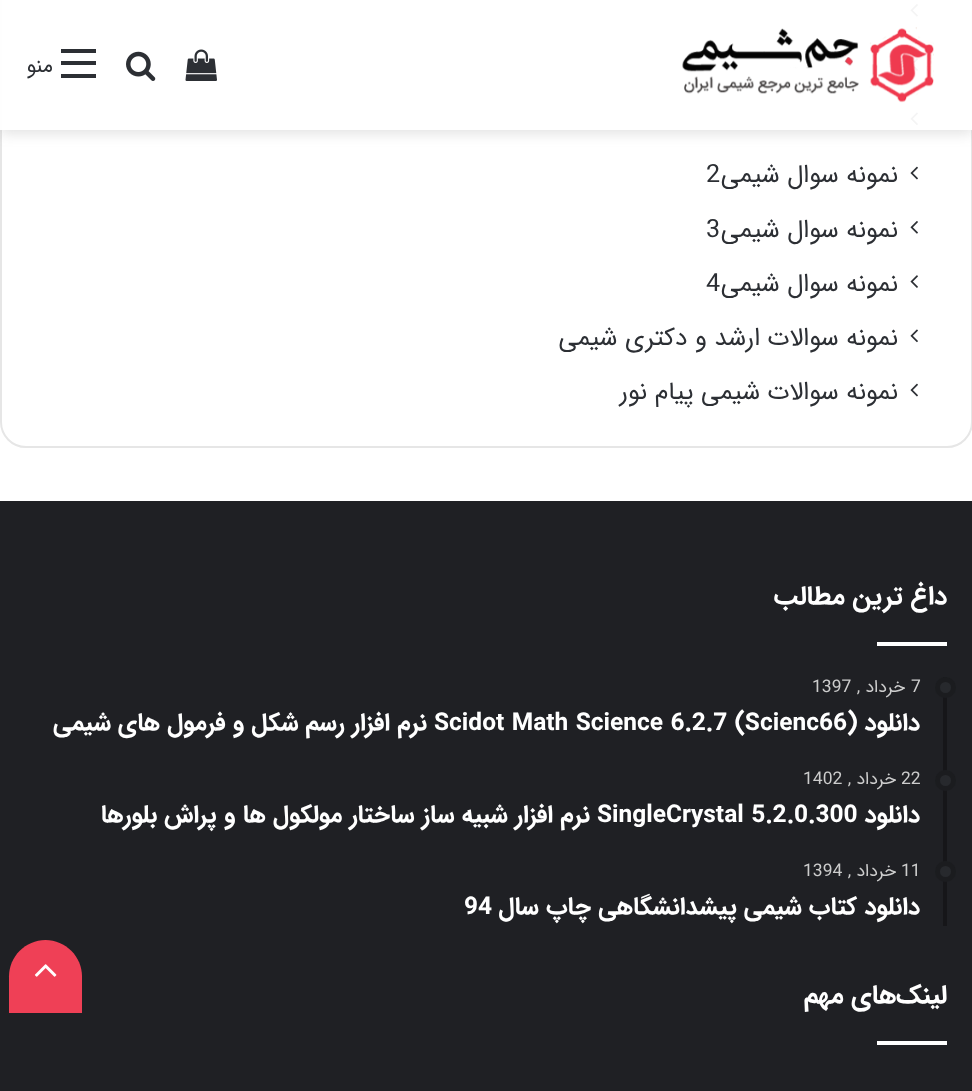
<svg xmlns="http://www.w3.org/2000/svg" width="972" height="1091">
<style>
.a{font:21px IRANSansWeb;direction:rtl;fill:#2c2f34}
.b{font:25.1px IRANSansWeb;direction:rtl;fill:#2c2f34}
.c{font:25.1px IRANSansWeb;fill:#2c2f34}
.d{font:bold 26.25px IRANSansWeb;direction:rtl;fill:#fff}
.e{font:17.5px IRANSansWeb;fill:#ccc}
.f{font:17.5px IRANSansWeb;direction:rtl;fill:#ccc}
.g{font:bold 24.5px IRANSansWeb;direction:rtl;fill:#fff}
.h{font:bold 24.5px IRANSansWeb;fill:#fff}
</style>
<defs>
<clipPath id="clip1"><path d="M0 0h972v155h-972zm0 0h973v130h-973z" clip-rule="evenodd"/></clipPath>
</defs>
<rect width="100%" height="100%" fill="#fff"/>
<rect fill="none" stroke="#e6e6e6" stroke-width="2" x="1" y="-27" width="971" height="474" rx="25"/>
<image href="4.png" x="910" y="4" width="8" height="13"/>
<image href="5.png" x="912" y="58" width="6" height="13"/>
<image href="6.png" x="910" y="112" width="8" height="14"/>
<g clip-path="url(#clip1)">
<path fill="#63636333" filter="blur(7px)" d="M0 4h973v129H0z"/>
</g>
<path fill="#fffffff2" d="M0 0h972v130H0z"/>
<image href="1.png" x="682" y="27" width="252" height="76"/>
<image href="2.png" x="185" y="49" width="32" height="32"/>
<image href="3.png" x="126" y="51" width="30" height="30"/>
<path fill="#2c2f34" d="M61 61h35v4H61z"/>
<path fill="#2c2f34" d="M61 49h35v4H61z"/>
<path fill="#2c2f34" d="M61 74h35v4H61z"/>
<image href="7.png" x="910" y="166" width="8" height="14"/>
<image href="4.png" x="910" y="221" width="8" height="13"/>
<image href="8.png" x="910" y="275" width="8" height="13"/>
<image href="6.png" x="910" y="329" width="8" height="14"/>
<image href="7.png" x="910" y="383" width="8" height="14"/>
<path fill="#1f2024" d="M0 501h972v590H0z"/>
<path fill="#fff" d="M877 642h70v4H877z"/>
<path fill="#161619" d="M943 677h4v249H943z"/>
<circle fill="#27292d" cx="945.5" cy="687.5" r="10.5"/>
<circle fill="none" stroke="#0000004d" stroke-width="5" cx="945.5" cy="687.5" r="8"/>
<circle fill="#27292d" cx="945.5" cy="780.5" r="10.5"/>
<circle fill="none" stroke="#0000004d" stroke-width="5" cx="945.5" cy="780.5" r="8"/>
<circle fill="#27292d" cx="945.5" cy="871.5" r="10.5"/>
<circle fill="none" stroke="#0000004d" stroke-width="5" cx="945.5" cy="871.5" r="8"/>
<path fill="#fff" d="M877 1041h70v4H877z"/>
<path fill="#ef4056" d="M45.5 940c20 0 36.5 16.5 36.5 36.5v36.5h-73v-36.5c0-20 16.5-36.5 36.5-36.5z"/>
<image href="9.png" x="34" y="964" width="23" height="13"/>
<text class="a" x="53" y="72">منو</text>
<text class="b" x="898" y="182">نمونه سوال شیمی</text>
<text class="c" x="706" y="182">2</text>
<text class="b" x="898" y="237">نمونه سوال شیمی</text>
<text class="c" x="706" y="237">3</text>
<text class="b" x="898" y="291">نمونه سوال شیمی</text>
<text class="c" x="706" y="291">4</text>
<text class="b" x="898" y="345">نمونه سوالات ارشد و دکتری شیمی</text>
<text class="b" x="898" y="399">نمونه سوالات شیمی پیام نور</text>
<text class="d" x="947" y="604">داغ ترین مطالب</text>
<text class="e" x="911" y="692">7</text>
<text class="f" x="905" y="692">خرداد ,</text>
<text class="e" x="812" y="692">1397</text>
<text class="g" x="920" y="730">دانلود (</text>
<text class="h" x="434" y="730">Scidot Math Science 6.2.7 (Scienc66</text>
<text class="g" x="427" y="730">نرم افزار رسم شکل و فرمول های شیمی</text>
<text class="e" x="901" y="784">22</text>
<text class="f" x="896" y="784">خرداد ,</text>
<text class="e" x="803" y="784">1402</text>
<text class="g" x="920" y="822">دانلود</text>
<text class="h" x="597" y="822">SingleCrystal 5.2.0.300</text>
<text class="g" x="590" y="822">نرم افزار شبیه ساز ساختار مولکول ها و پراش بلورها</text>
<text class="e" x="901" y="876">11</text>
<text class="f" x="896" y="876">خرداد ,</text>
<text class="e" x="803" y="876">1394</text>
<text class="g" x="920" y="914">دانلود کتاب شیمی پیشدانشگاهی چاپ سال</text>
<text class="h" x="464" y="914">94</text>
<text class="d" x="947" y="1003">لینک‌های مهم</text>
</svg>
